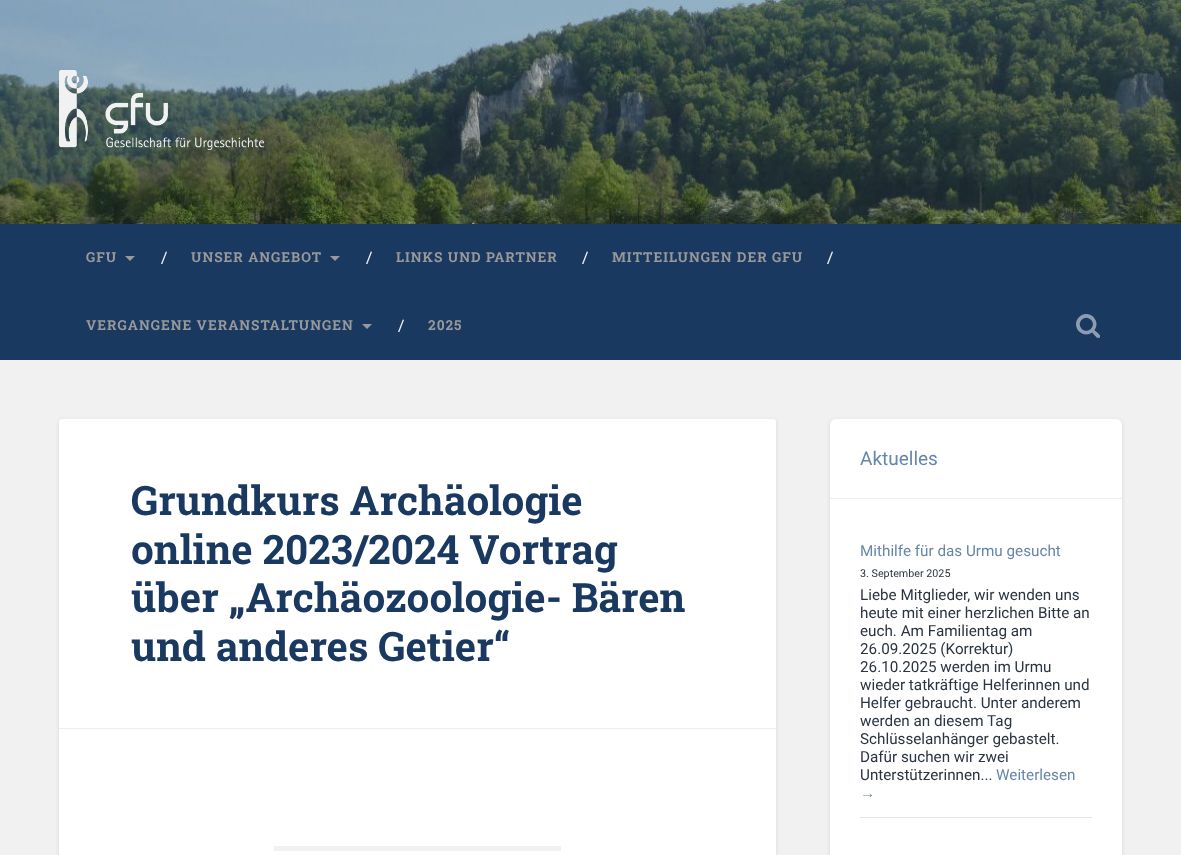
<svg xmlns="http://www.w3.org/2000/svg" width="1181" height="855">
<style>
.a{font:bold 13.75px Roboto Slab;letter-spacing:1px;fill:#999}
.b{font:16px Roboto Slab;fill:#f1f1f1}
.c{font:bold 40.5px Roboto Slab;fill:#1a3961}
.d{font:19px Roboto;fill:#6686aa}
.e{font:15.25px Roboto;fill:#6686aa}
.f{font:10.75px Roboto;fill:#2b3542}
.g{font:15.25px Roboto;fill:#2b3542}
.h{font:15.25px Liberation Sans;fill:#6686aa}
</style>
<rect width="100%" height="100%" fill="#f1f1f1"/>
<image href="1.png" x="0" y="0" width="1181" height="224"/>
<image href="2.png" x="59" y="70" width="205" height="80"/>
<path fill="#1a3961" d="M0 224h1181v136H0z"/>
<path fill="#999" d="M125 256h10l-5 5z"/>
<path fill="#999" d="M330 256h10l-5 5z"/>
<path fill="#999" d="M362 324h10l-5 5z"/>
<image href="3.png" x="1076" y="314" width="24" height="24"/>
<rect fill="#0000001a" filter="blur(2px)" x="59" y="420" width="717" height="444" rx="3"/>
<rect fill="#fff" x="59" y="419" width="717" height="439" rx="3"/>
<path fill="#eee" d="M59 728h717v1H59z"/>
<path fill="#f1f1f1" d="M274 846h287v5H274z"/>
<rect fill="#0000001a" filter="blur(2px)" x="830" y="420" width="292" height="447" rx="6"/>
<rect fill="#fff" x="830" y="419" width="292" height="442" rx="6"/>
<path fill="#eee" d="M830 498h292v1H830z"/>
<path fill="#e6e6e6" d="M860 817h232v1H860z"/>
<text class="a" x="86" y="262">GFU</text>
<text class="b" x="161" y="263">/</text>
<text class="a" x="191" y="262">UNSER ANGEBOT</text>
<text class="b" x="366" y="263">/</text>
<text class="a" x="396" y="262">LINKS UND PARTNER</text>
<text class="b" x="582" y="263">/</text>
<text class="a" x="612" y="262">MITTEILUNGEN DER GFU</text>
<text class="b" x="827" y="263">/</text>
<text class="a" x="86" y="330">VERGANGENE VERANSTALTUNGEN</text>
<text class="b" x="398" y="331">/</text>
<text class="a" x="428" y="330">2025</text>
<text class="c" x="131" y="515">Grundkurs Archäologie</text>
<text class="c" x="131" y="564">online 2023/2024 Vortrag</text>
<text class="c" x="131" y="612">über „Archäozoologie- Bären</text>
<text class="c" x="131" y="661">und anderes Getier“</text>
<text class="d" x="860" y="465">Aktuelles</text>
<text class="e" x="860" y="556">Mithilfe für das Urmu gesucht</text>
<text class="f" x="860" y="577">3. September 2025</text>
<text class="g" x="860" y="600">Liebe Mitglieder, wir wenden uns</text>
<text class="g" x="860" y="618">heute mit einer herzlichen Bitte an</text>
<text class="g" x="860" y="636">euch. Am Familientag am</text>
<text class="g" x="860" y="654">26.09.2025 (Korrektur)</text>
<text class="g" x="860" y="672">26.10.2025 werden im Urmu</text>
<text class="g" x="860" y="690">wieder tatkräftige Helferinnen und</text>
<text class="g" x="860" y="708">Helfer gebraucht. Unter anderem</text>
<text class="g" x="860" y="726">werden an diesem Tag</text>
<text class="g" x="860" y="744">Schlüsselanhänger gebastelt.</text>
<text class="g" x="860" y="762">Dafür suchen wir zwei</text>
<text class="g" x="860" y="780">Unterstützerinnen...</text>
<text class="e" x="996" y="780">Weiterlesen</text>
<text class="h" x="860" y="798">→</text>
</svg>
